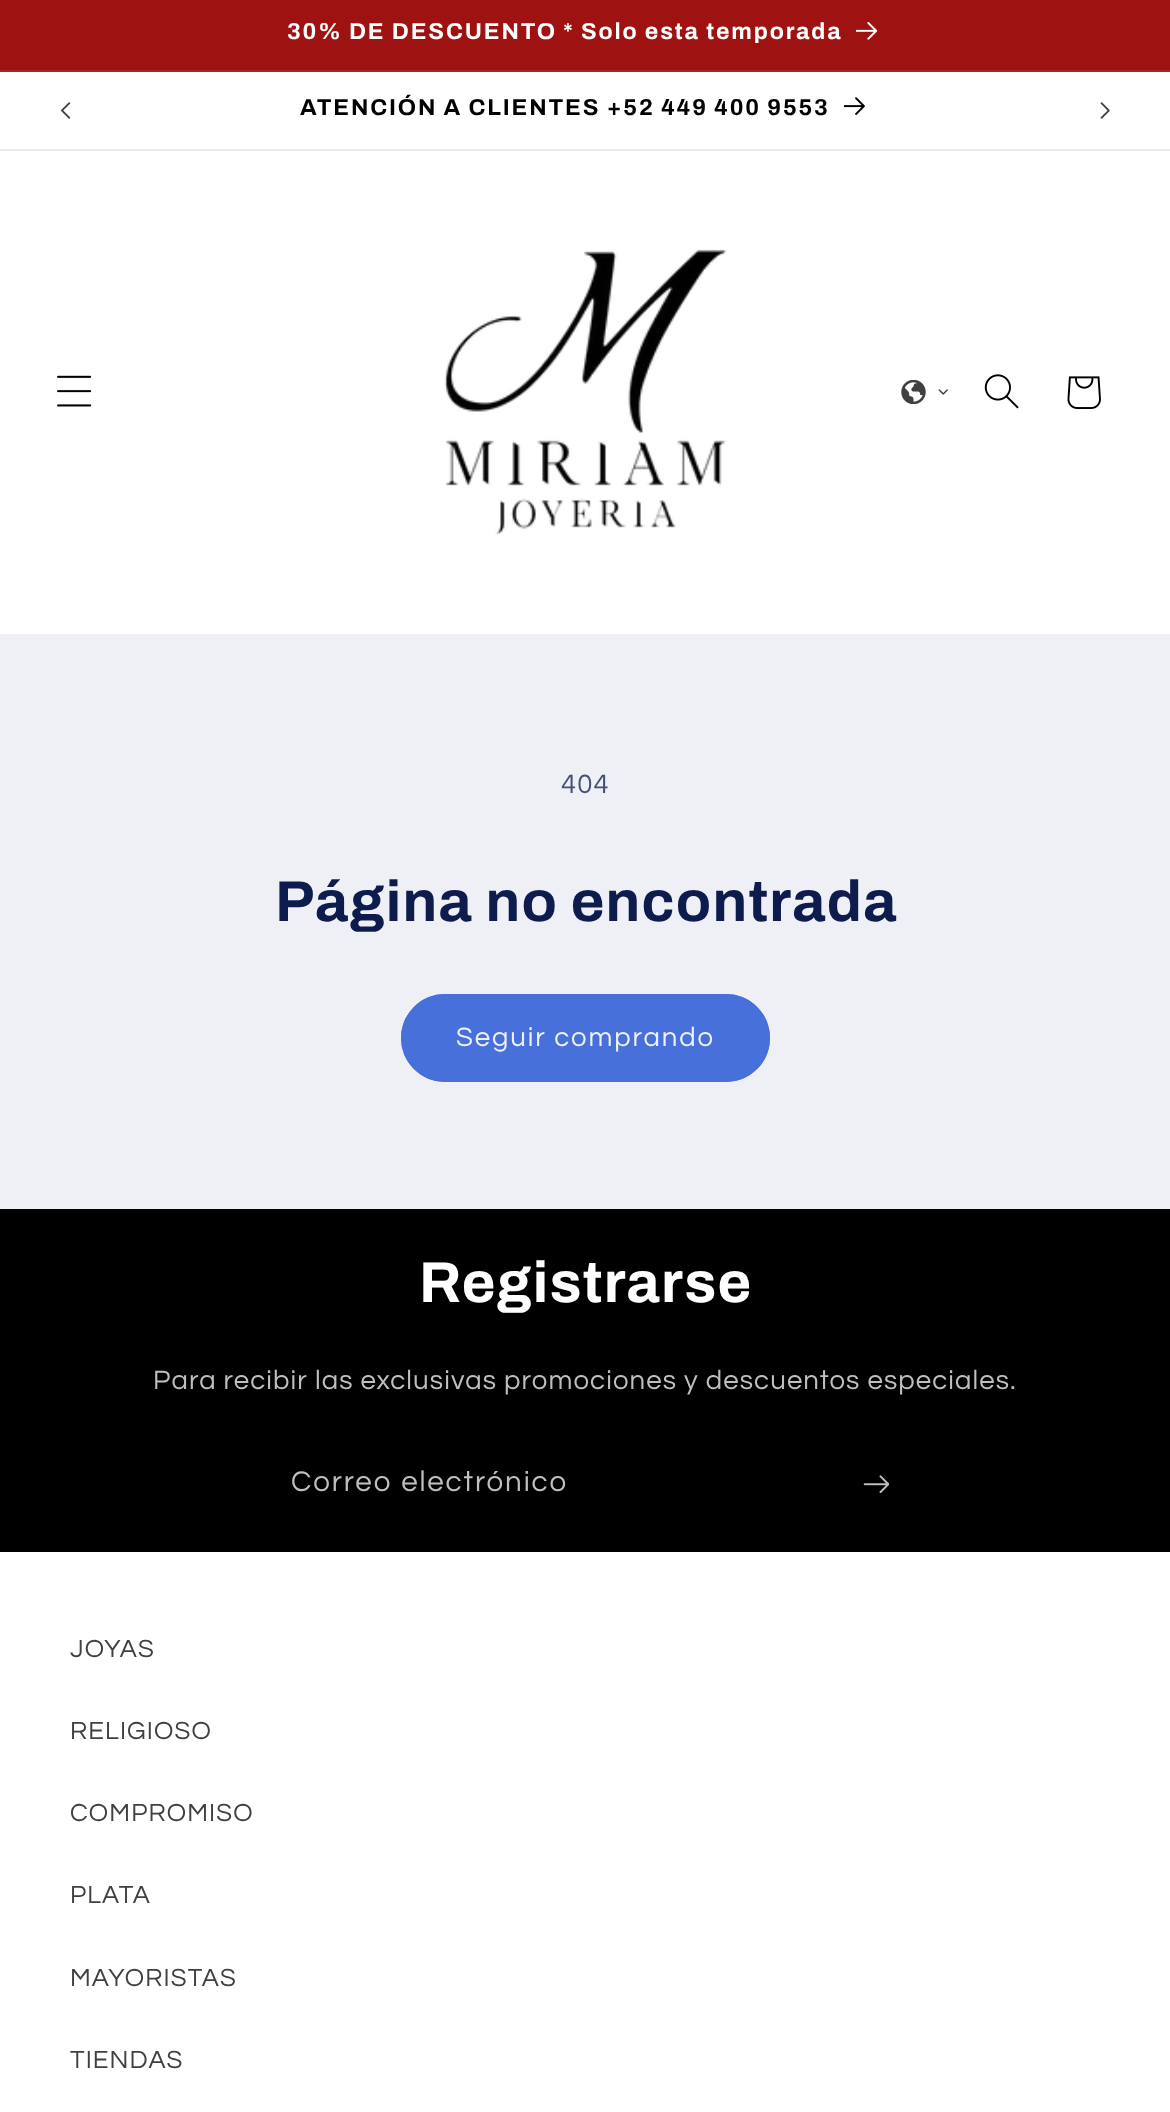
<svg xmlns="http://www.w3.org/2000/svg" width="1170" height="2112">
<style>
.a{font:bold 23.1px Archivo;letter-spacing:1.85px;fill:#fff}
.b{font:bold 23.1px Archivo;letter-spacing:1.85px;fill:#000}
.c{font:27.55px Questrial;letter-spacing:1.1px;fill:#465077}
.d{font:bold 57.75px Archivo;letter-spacing:1.2px;fill:#0e1b4d}
.e{font:27.55px Questrial;letter-spacing:1.85px;fill:#eff0f5}
.f{font:bold 57.75px Archivo;letter-spacing:1.2px;fill:#fff}
.g{font:27.55px Questrial;letter-spacing:1.1px;fill:#bfbfbf}
.h{font:29.5px Questrial;letter-spacing:1.85px;fill:#bfbfbf}
.i{font:25.75px Questrial;letter-spacing:1.1px;fill:#404040}
</style>
<rect width="100%" height="100%" fill="#eff0f5"/>
<path fill="#9e1212" d="M0 0h1170v70H0z"/>
<path fill="#a62525" d="M0 70h1170v2H0z"/>
<image href="1.png" x="856" y="22" width="22" height="18"/>
<path fill="#fff" d="M0 72h1170v77H0z"/>
<path fill="#ebebeb" d="M0 149h1170v2H0z"/>
<image href="2.png" x="61" y="102" width="10" height="17"/>
<image href="3.png" x="844" y="97" width="21" height="18"/>
<image href="4.png" x="1100" y="102" width="10" height="17"/>
<path fill="#fff" d="M0 151h1170v483H0z"/>
<image href="5.png" x="57" y="375" width="35" height="32"/>
<image href="6.png" x="444" y="249" width="283" height="286"/>
<image href="7.png" x="901" y="380" width="25" height="24"/>
<image href="8.png" x="938" y="389" width="10" height="6"/>
<image href="9.png" x="984" y="374" width="35" height="35"/>
<image href="10.png" x="1067" y="376" width="34" height="33"/>
<rect fill="#4770db" x="401" y="994" width="369" height="88" rx="44"/>
<rect fill="none" stroke="#4770db" stroke-width="2" x="402" y="995" width="367" height="86" rx="43"/>
<path fill="#000" d="M0 1209h1170v343H0z"/>
<image href="11.png" x="863" y="1475" width="26" height="18"/>
<path fill="#fff" d="M0 1552h1170v560H0z"/>
<text class="a" x="287" y="39">30% DE DESCUENTO * Solo esta temporada</text>
<text class="b" x="300" y="115">ATENCIÓN A CLIENTES +52 449 400 9553</text>
<text class="c" x="561" y="793">404</text>
<text class="d" x="275" y="921">Página no encontrada</text>
<text class="e" x="456" y="1046">Seguir comprando</text>
<text class="f" x="419" y="1302">Registrarse</text>
<text class="g" x="153" y="1389">Para recibir las exclusivas promociones y descuentos especiales.</text>
<text class="h" x="291" y="1491">Correo electrónico</text>
<text class="i" x="70" y="1657">JOYAS</text>
<text class="i" x="70" y="1739">RELIGIOSO</text>
<text class="i" x="70" y="1821">COMPROMISO</text>
<text class="i" x="70" y="1903">PLATA</text>
<text class="i" x="70" y="1986">MAYORISTAS</text>
<text class="i" x="70" y="2068">TIENDAS</text>
</svg>
